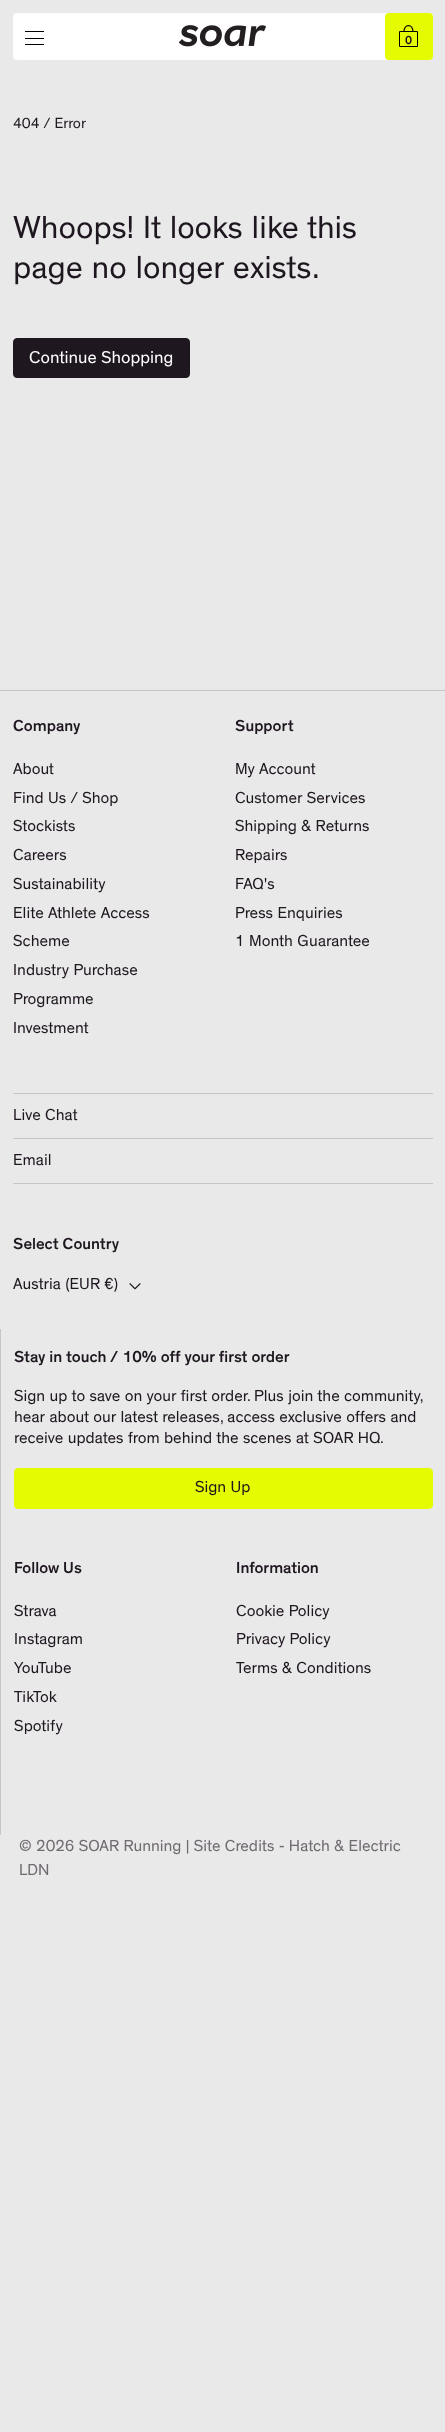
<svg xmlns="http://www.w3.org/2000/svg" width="445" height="2432">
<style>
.a{font:500 12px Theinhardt;fill:#1f171f}
.b{font:15px Theinhardt;fill:#1f171f}
.c{font:32.5px Theinhardt;fill:#1f171f}
.d{font:17.5px Theinhardt;fill:#fff}
.e{font:500 16.25px Theinhardt;fill:#1f171f}
.f{font:16.25px Theinhardt;fill:#1f171f}
.g{font:16.25px Theinhardt;fill:#706b70}
</style>
<rect width="100%" height="100%" fill="#e9e9ea"/>
<rect fill="#fff" x="13" y="13" width="420" height="47" rx="4"/>
<path fill="#000" d="M25 31h19v1H25z"/>
<path fill="#000" d="M25 38h19v1H25z"/>
<path fill="#000" d="M25 44h19v1H25z"/>
<image href="1.png" x="179" y="25" width="87" height="22"/>
<rect fill="#e4fb02" x="385" y="13" width="48" height="47" rx="4"/>
<path fill="none" stroke="#000" d="M399.5 31.5h18v15H399.5z"/>
<path fill="none" stroke="#000" stroke-width="1.2" d="M404 32c0-8.5 9-8.5 9 0"/>
<rect fill="#1f1720" stroke="#1f1720" x="13.5" y="338.5" width="176" height="39" rx="3.5"/>
<path fill="#c6c6c7" d="M0 690h445v1H0z"/>
<path fill="#c6c6c7" d="M13 1093h420v1H13z"/>
<path fill="#c6c6c7" d="M13 1138h420v1H13z"/>
<path fill="#c6c6c7" d="M13 1183h420v1H13z"/>
<image href="2.png" x="129" y="1283" width="12" height="7"/>
<path fill="#c6c6c7" d="M0 1329h1v506H0z"/>
<rect fill="#e4fb02" stroke="#e4fb02" x="14.5" y="1468.5" width="418" height="40" rx="3.5"/>
<text class="a" x="405" y="44">0</text>
<text class="b" x="13" y="128">404 / Error</text>
<text class="c" x="13" y="238">Whoops! It looks like this</text>
<text class="c" x="13" y="278">page no longer exists.</text>
<text class="d" x="29" y="363">Continue Shopping</text>
<text class="e" x="13" y="731">Company</text>
<text class="f" x="13" y="774">About</text>
<text class="f" x="13" y="803">Find Us / Shop</text>
<text class="f" x="13" y="831">Stockists</text>
<text class="f" x="13" y="860">Careers</text>
<text class="f" x="13" y="889">Sustainability</text>
<text class="f" x="13" y="918">Elite Athlete Access</text>
<text class="f" x="13" y="946">Scheme</text>
<text class="f" x="13" y="975">Industry Purchase</text>
<text class="f" x="13" y="1004">Programme</text>
<text class="f" x="13" y="1033">Investment</text>
<text class="e" x="235" y="731">Support</text>
<text class="f" x="235" y="774">My Account</text>
<text class="f" x="235" y="803">Customer Services</text>
<text class="f" x="235" y="831">Shipping &amp; Returns</text>
<text class="f" x="235" y="860">Repairs</text>
<text class="f" x="235" y="889">FAQ's</text>
<text class="f" x="235" y="918">Press Enquiries</text>
<text class="f" x="235" y="946">1 Month Guarantee</text>
<text class="f" x="13" y="1120">Live Chat</text>
<text class="f" x="13" y="1165">Email</text>
<text class="e" x="13" y="1249">Select Country</text>
<text class="f" x="13" y="1289">Austria (EUR €)</text>
<text class="e" x="14" y="1362">Stay in touch / 10% off your first order</text>
<text class="f" x="14" y="1401">Sign up to save on your first order.</text>
<text class="f" x="254" y="1401">Plus join the community,</text>
<text class="f" x="14" y="1422">hear about our latest releases, access exclusive offers and</text>
<text class="f" x="14" y="1443">receive updates from behind the scenes at SOAR HQ.</text>
<text class="f" x="195" y="1492">Sign Up</text>
<text class="e" x="14" y="1573">Follow Us</text>
<text class="f" x="14" y="1616">Strava</text>
<text class="f" x="14" y="1644">Instagram</text>
<text class="f" x="14" y="1673">YouTube</text>
<text class="f" x="14" y="1702">TikTok</text>
<text class="f" x="14" y="1731">Spotify</text>
<text class="e" x="236" y="1573">Information</text>
<text class="f" x="236" y="1616">Cookie Policy</text>
<text class="f" x="236" y="1644">Privacy Policy</text>
<text class="f" x="236" y="1673">Terms &amp; Conditions</text>
<text class="g" x="19" y="1851">© 2026 SOAR Running | Site Credits</text>
<text class="g" x="279" y="1851">- Hatch &amp; Electric</text>
<text class="g" x="19" y="1875">LDN</text>
</svg>
